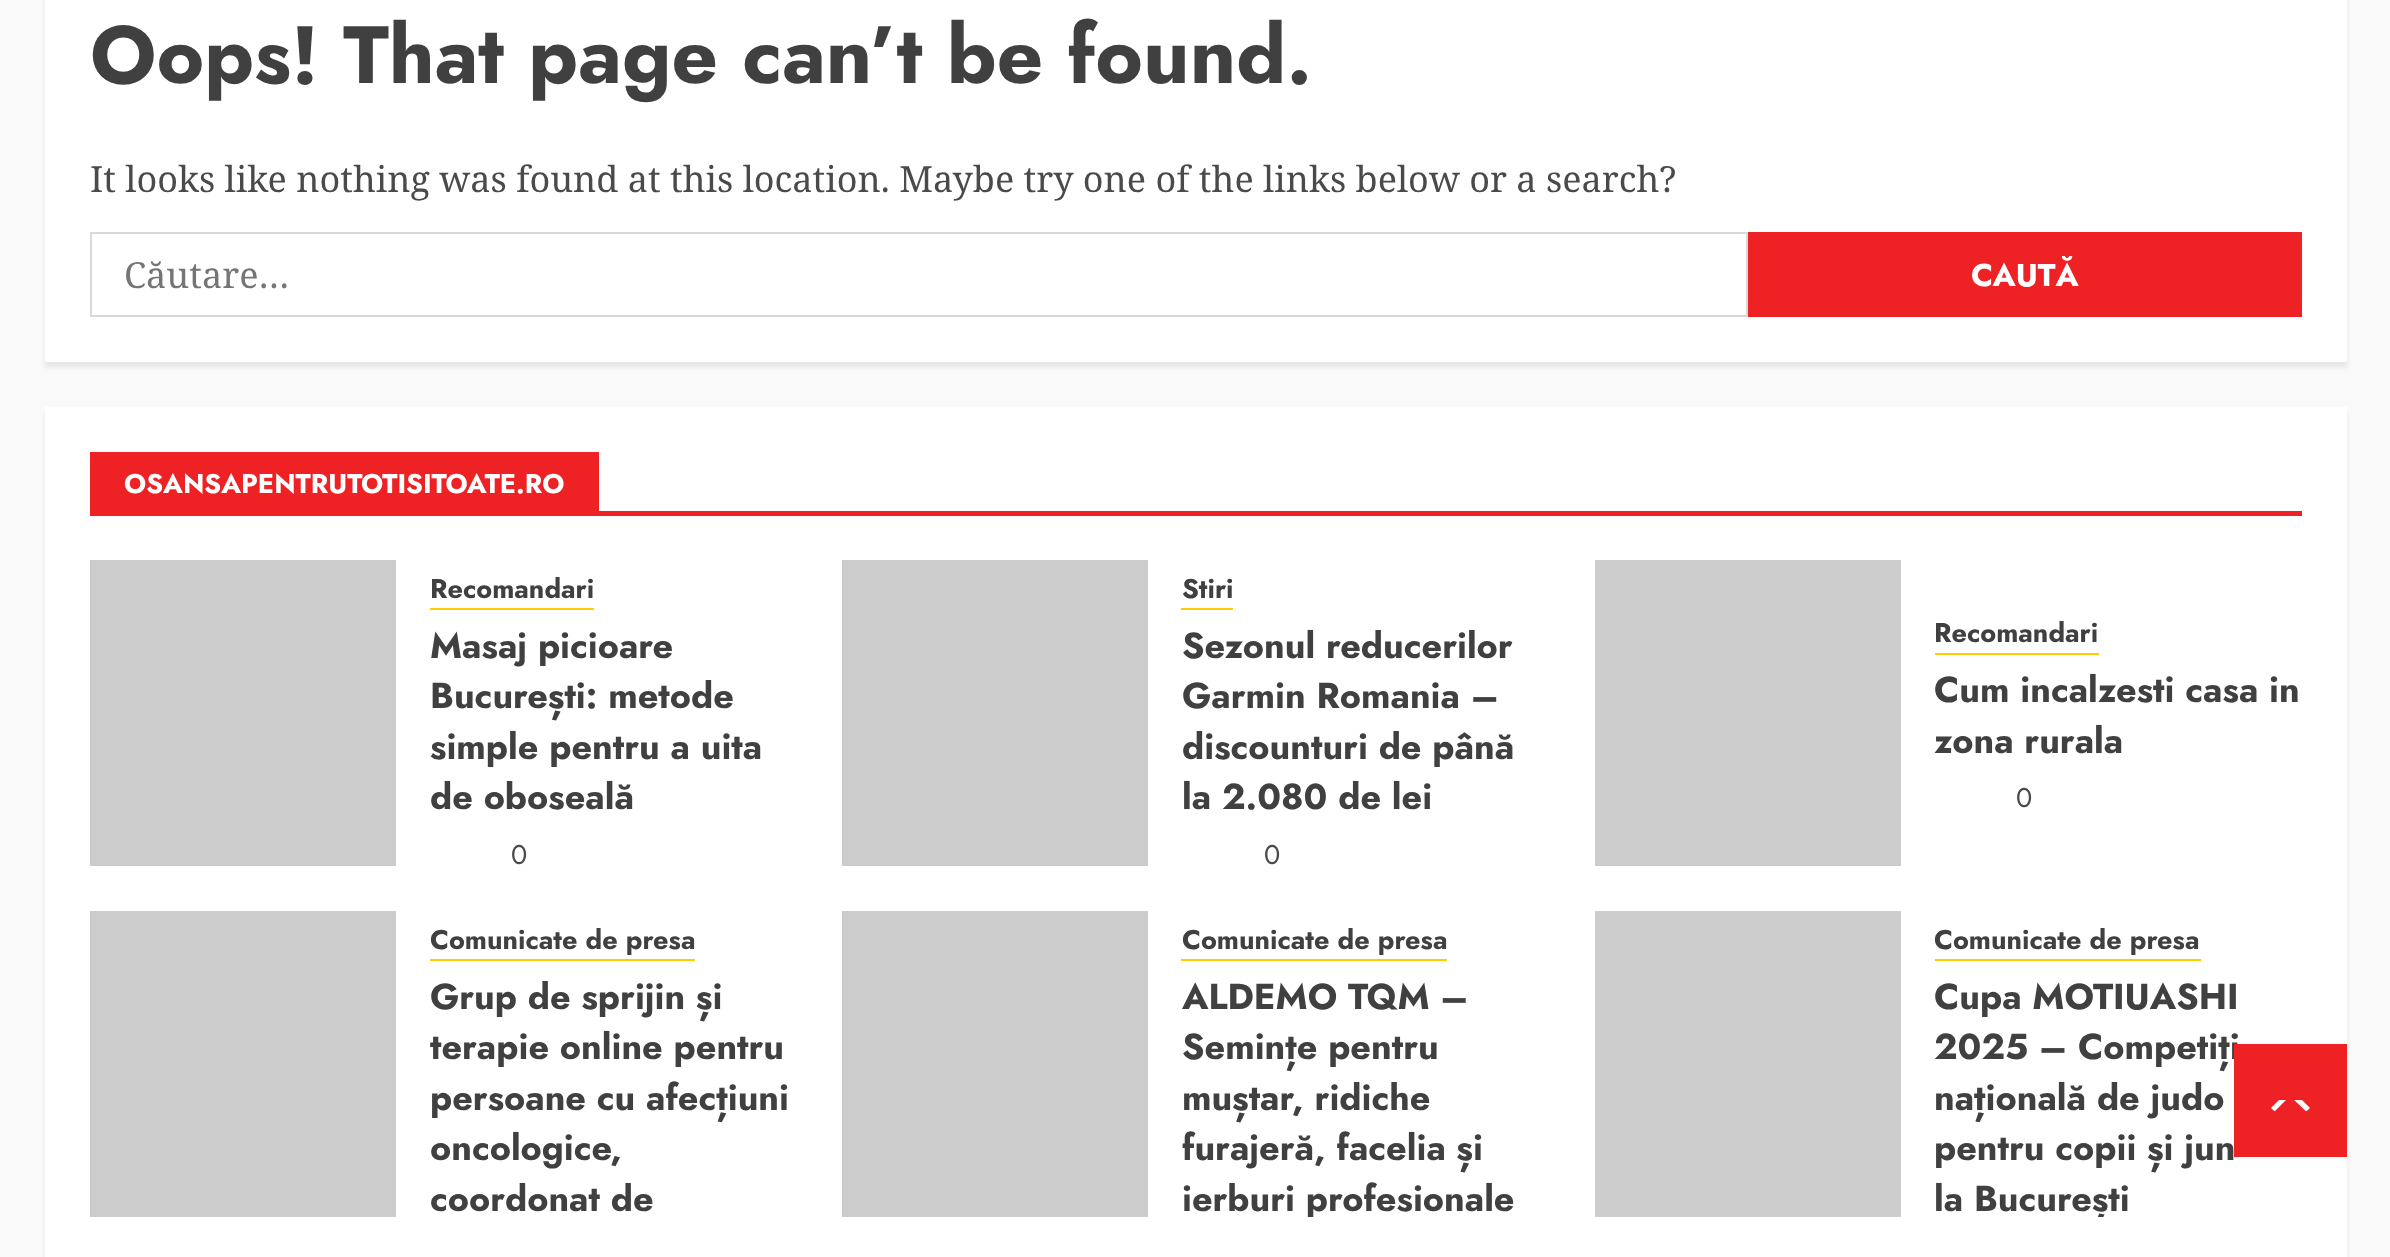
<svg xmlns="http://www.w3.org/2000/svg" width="2390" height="1257">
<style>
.a{font:bold 81px Jost;fill:#404040}
.b{font:36px Noto Serif;fill:#4a4a4a}
.c{font:36px Noto Serif;fill:#757575}
.d{font:bold 31.5px Jost;fill:#fff}
.e{font:bold 27px Jost;fill:#fff}
.f{font:bold 27px Jost;fill:#404040}
.g{font:bold 36px Jost;fill:#404040}
.h{font:27px Jost;letter-spacing:1px;fill:#4a4a4a}
</style>
<defs>
<clipPath id="clip1"><path d="M1148 911h402v306H1148z"/></clipPath>
<clipPath id="clip2"><path d="M1901 911h401v306H1901z"/></clipPath>
</defs>
<rect width="100%" height="100%" fill="#f9f9f9"/>
<path fill="#00000014" filter="blur(2px)" d="M45 -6h2302v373H45z"/>
<path fill="#fff" d="M45 0h2302v362H45z"/>
<path fill="none" stroke="#d9d9d9" stroke-width="2" d="M91 233h1656v83H91z"/>
<path fill="#ee2224" d="M1748 232h554v85H1748z"/>
<path fill="#00000014" filter="blur(2px)" d="M45 412h2302v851H45z"/>
<path fill="#fff" d="M45 407h2302v850H45z"/>
<path fill="#ee2224" d="M90 452h509v59H90z"/>
<path fill="#ee2224" d="M90 511h2212v5H90z"/>
<path fill="#ccc" d="M90 560h306v306H90z"/>
<path fill="#fc0" d="M430 608h164v2H430z"/>
<path fill="#ccc" d="M842 560h306v306H842z"/>
<path fill="#fc0" d="M1181 608h52v2H1181z"/>
<path fill="#ccc" d="M1595 560h306v306H1595z"/>
<path fill="#fc0" d="M1935 653h164v2H1935z"/>
<path fill="#ccc" d="M90 911h306v306H90z"/>
<path fill="#fc0" d="M430 959h265v2H430z"/>
<path fill="#ccc" d="M842 911h306v306H842z"/>
<path fill="#fc0" d="M1181 959h266v2H1181z"/>
<path fill="#ccc" d="M1595 911h306v306H1595z"/>
<path fill="#fc0" d="M1935 959h266v2H1935z"/>
<text class="a" x="90" y="83">Oops! That page can’t be found.</text>
<text class="b" x="90" y="192">It looks like nothing was found at this location. Maybe try one of the links below or a search?</text>
<text class="c" x="124" y="288">Căutare…</text>
<text class="d" x="1971" y="286">CAUTĂ</text>
<text class="e" x="124" y="493">OSANSAPENTRUTOTISITOATE.RO</text>
<text class="f" x="430" y="598">Recomandari</text>
<text class="g" x="430" y="658">Masaj picioare</text>
<text class="g" x="430" y="708">București: metode</text>
<text class="g" x="430" y="759">simple pentru a uita</text>
<text class="g" x="430" y="809">de oboseală</text>
<text class="h" x="511" y="864">0</text>
<text class="f" x="1182" y="598">Stiri</text>
<text class="g" x="1182" y="658">Sezonul reducerilor</text>
<text class="g" x="1182" y="708">Garmin Romania –</text>
<text class="g" x="1182" y="759">discounturi de până</text>
<text class="g" x="1182" y="809">la 2.080 de lei</text>
<text class="h" x="1264" y="864">0</text>
<text class="f" x="1934" y="642">Recomandari</text>
<text class="g" x="1934" y="702">Cum incalzesti casa in</text>
<text class="g" x="1934" y="753">zona rurala</text>
<text class="h" x="2016" y="807">0</text>
<text class="f" x="430" y="949">Comunicate de presa</text>
<text class="g" x="430" y="1009">Grup de sprijin și</text>
<text class="g" x="430" y="1059">terapie online pentru</text>
<text class="g" x="430" y="1110">persoane cu afecțiuni</text>
<text class="g" x="430" y="1160">oncologice,</text>
<text class="g" x="430" y="1211">coordonat de</text>
<text class="f" x="1182" y="949">Comunicate de presa</text>
<text class="g" x="1182" y="1009">ALDEMO TQM –</text>
<text class="g" x="1182" y="1059">Semințe pentru</text>
<text class="g" x="1182" y="1110">muștar, ridiche</text>
<text class="g" x="1182" y="1160">furajeră, facelia și</text>
<g clip-path="url(#clip1)">
<text class="g" x="1182" y="1211">ierburi profesionale</text>
</g>
<text class="f" x="1934" y="949">Comunicate de presa</text>
<text class="g" x="1934" y="1009">Cupa MOTIUASHI</text>
<text class="g" x="1934" y="1059">2025 – Competiți</text>
<text class="g" x="1934" y="1110">națională de judo</text>
<text class="g" x="1934" y="1160">pentru copii și jun</text>
<g clip-path="url(#clip2)">
<text class="g" x="1934" y="1211">la București</text>
</g>
<path fill="#ee2224" d="M2234 1044h113v113H2234z"/>
<path fill="#fff" d="M2276 1111.5c-2-.5-3.5-2-5-3.5l8-8h23l8 8c-1.5 1.5-3 3-5 3.5z"/>
<path fill="#ee2224" d="M2313 1118h-45l22-22z"/>
</svg>
